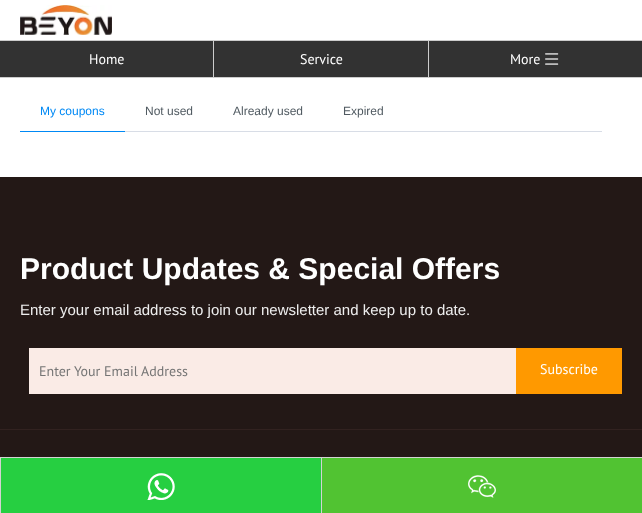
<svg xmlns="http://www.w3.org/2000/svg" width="642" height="513">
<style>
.a{font:14px PT Sans;fill:#fff}
.b{font:12px Liberation Sans;fill:#0089f5}
.c{font:12px Liberation Sans;fill:#505a61}
.d{font:bold 30px Liberation Sans;fill:#fff}
.e{font:15px Liberation Sans;fill:#eee}
.f{font:14px PT Sans;fill:#757575}
</style>
<rect width="100%" height="100%" fill="#fff"/>
<image href="1.png" x="20" y="5" width="92" height="30"/>
<path fill="#323232" d="M0 41h642v36H0z"/>
<path fill="#ccc" d="M0 40h642v1H0z"/>
<path fill="#ccc" d="M0 77h642v1H0z"/>
<path fill="#ccc" d="M213 41h1v36H213z"/>
<path fill="#ccc" d="M428 41h1v36H428z"/>
<image href="2.png" x="545" y="53" width="14" height="12"/>
<path fill="#d8dde6" d="M125 131h477v1H125z"/>
<path fill="#0089f5" d="M20 131h105v1H20z"/>
<path fill="#231816" d="M0 177h642v252H0z"/>
<path fill="#322220" d="M0 429h642v1H0z"/>
<path fill="#faebe6" d="M29 348h487v46H29z"/>
<path fill="#f90" d="M516 348h106v46H516z"/>
<path fill="#231816" d="M0 430h642v27H0z"/>
<path fill="#d3d3d3" d="M0 457h642v1H0z"/>
<path fill="#d3d3d3" d="M0 458h1v55H0z"/>
<path fill="#26cf41" d="M1 458h320v55H1z"/>
<image href="3.png" x="147" y="473" width="28" height="27"/>
<path fill="#d3d3d3" d="M321 458h1v55H321z"/>
<path fill="#51c332" d="M322 458h320v55H322z"/>
<image href="4.png" x="468" y="475" width="28" height="23"/>
<text class="a" x="89" y="64">Home</text>
<text class="a" x="300" y="64">Service</text>
<text class="a" x="510" y="64">More</text>
<text class="b" x="40" y="115">My coupons</text>
<text class="c" x="145" y="115">Not used</text>
<text class="c" x="233" y="115">Already used</text>
<text class="c" x="343" y="115">Expired</text>
<text class="d" x="20" y="279">Product Updates &amp; Special Offers</text>
<text class="e" x="20" y="315">Enter your email address to join our newsletter and keep up to date.</text>
<text class="f" x="39" y="376">Enter Your Email Address</text>
<text class="a" x="540" y="374">Subscribe</text>
</svg>
